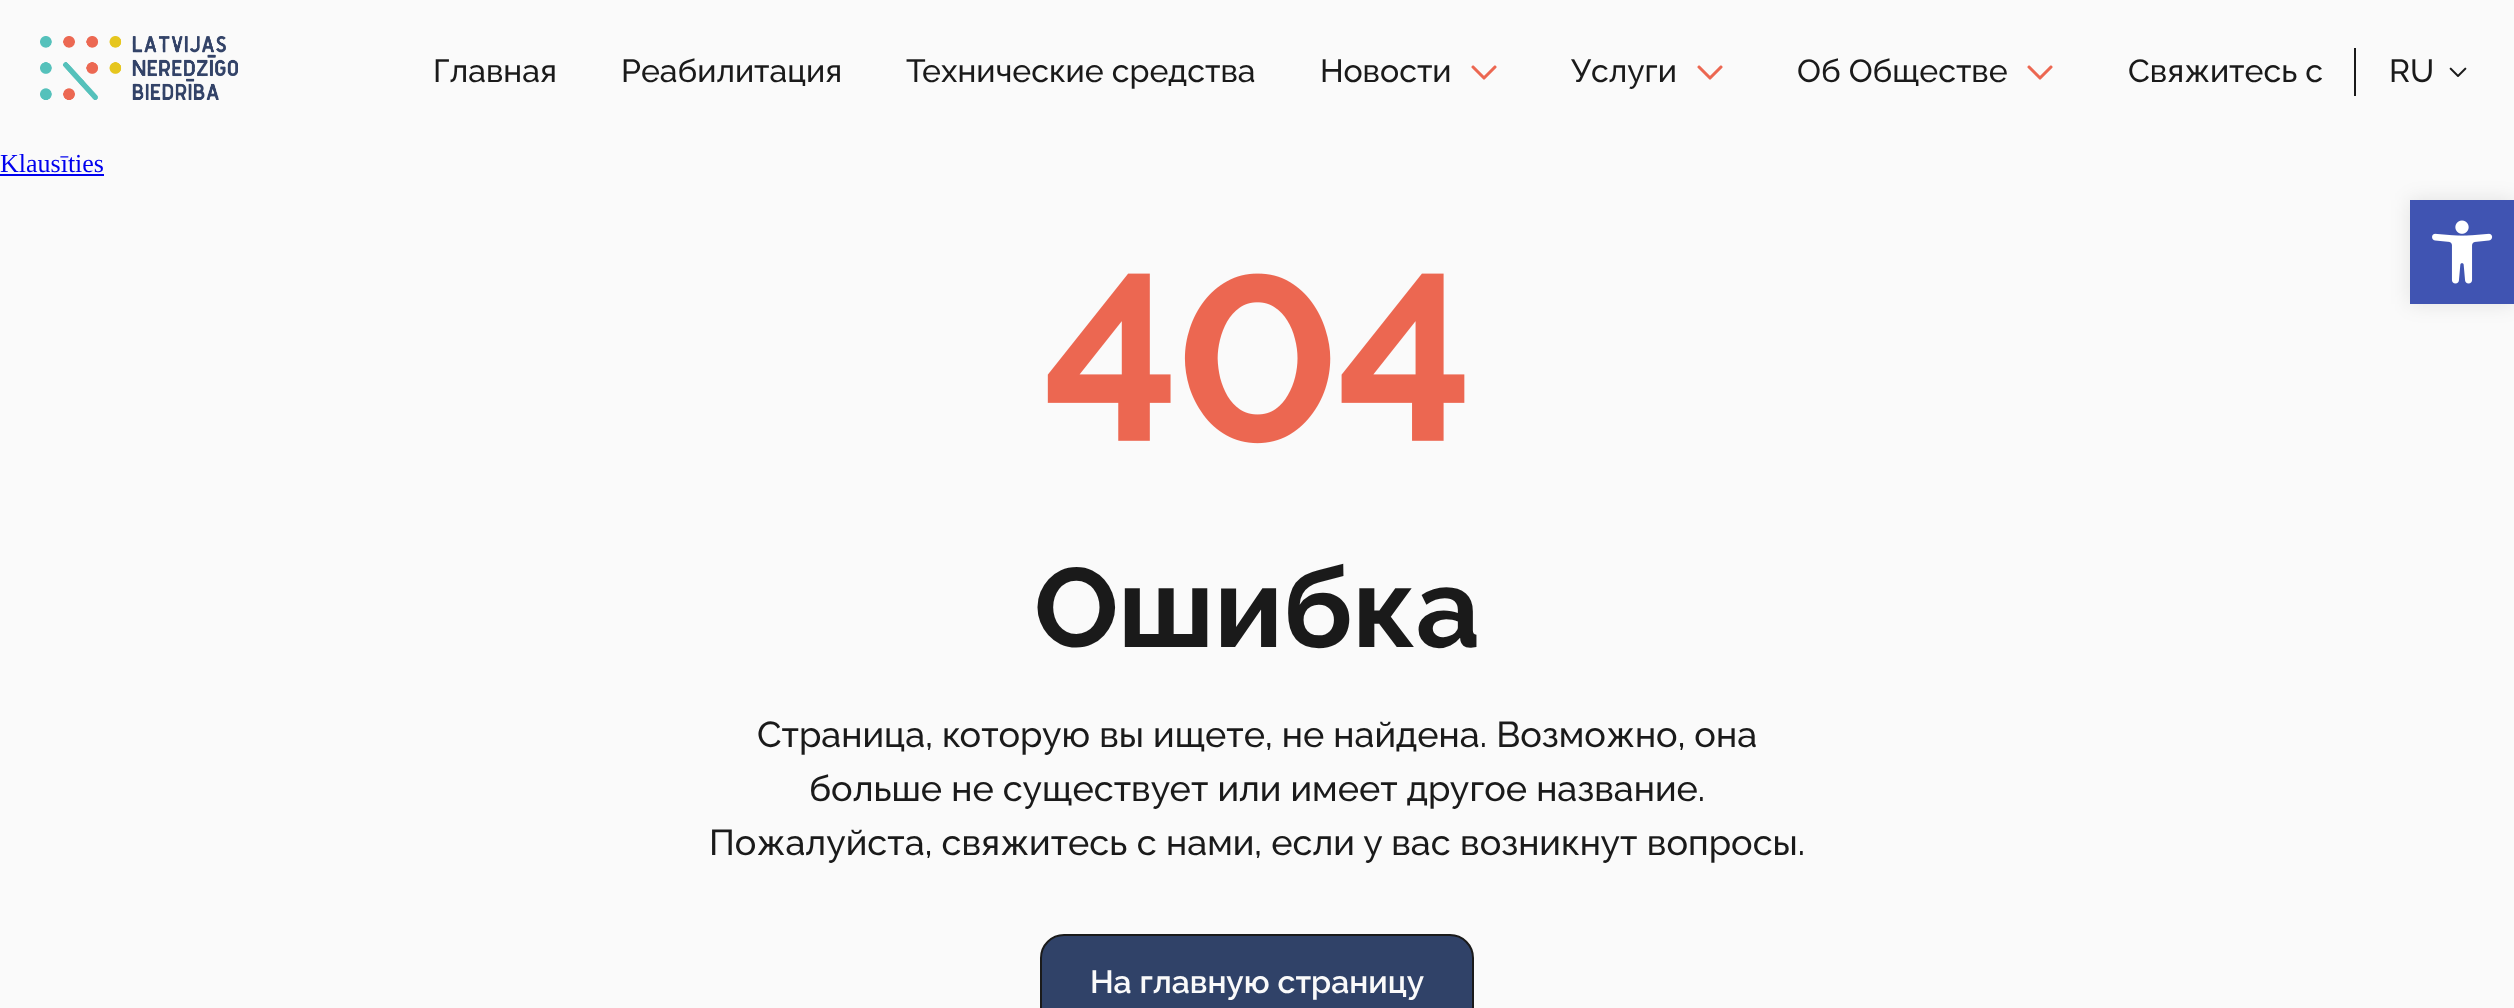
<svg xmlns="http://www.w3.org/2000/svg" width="2514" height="1008">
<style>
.a{font:500 32px Raleway;fill:#1a1a1a}
.b{font:26px Liberation Serif;fill:#00e}
.c{font:bold 112px Raleway;fill:#1a1a1a}
.d{font:500 36px Raleway;fill:#1a1a1a}
.e{font:600 32px Raleway;fill:#fafafa}
</style>
<rect width="100%" height="100%" fill="#fafafa"/>
<image href="1.png" x="40" y="36" width="198" height="64"/>
<image href="2.png" x="1471" y="65" width="26" height="15"/>
<image href="2.png" x="1697" y="65" width="26" height="15"/>
<image href="2.png" x="2027" y="65" width="26" height="15"/>
<path fill="#1a1a1a" d="M2354 48h2v48H2354z"/>
<image href="3.png" x="2449" y="67" width="18" height="10"/>
<path fill="#00e" d="M0 174h104v2H0z"/>
<path fill="#0000001a" filter="blur(10px)" d="M2410 200h104v104H2410z"/>
<path fill="#4054b2" d="M2410 200h104v104H2410z"/>
<image href="4.png" x="2432" y="220" width="61" height="64"/>
<image href="5.png" x="1047" y="273" width="418" height="171"/>
<rect fill="#304268" stroke="#1a1a1a" stroke-width="2" x="1041" y="935" width="432" height="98" rx="23"/>
<text class="a" x="433" y="82">Главная</text>
<text class="a" x="621" y="82">Реабилитация</text>
<text class="a" x="906" y="82">Технические средства</text>
<text class="a" x="1320" y="82">Новости</text>
<text class="a" x="1571" y="82">Услуги</text>
<text class="a" x="1797" y="82">Об Обществе</text>
<text class="a" x="2128" y="82">Свяжитесь с</text>
<text class="a" x="2389" y="82">RU</text>
<text class="b" x="0" y="172">Klausīties</text>
<text class="c" x="1034" y="647">Ошибка</text>
<text class="d" x="757" y="747">Страница, которую вы ищете, не найдена. Возможно, она</text>
<text class="d" x="809" y="801">больше не существует или имеет другое название.</text>
<text class="d" x="709" y="855" word-spacing="0.25">Пожалуйста, свяжитесь с нами, если у вас возникнут вопросы.</text>
<text class="e" x="1090" y="993">На главную страницу</text>
</svg>
